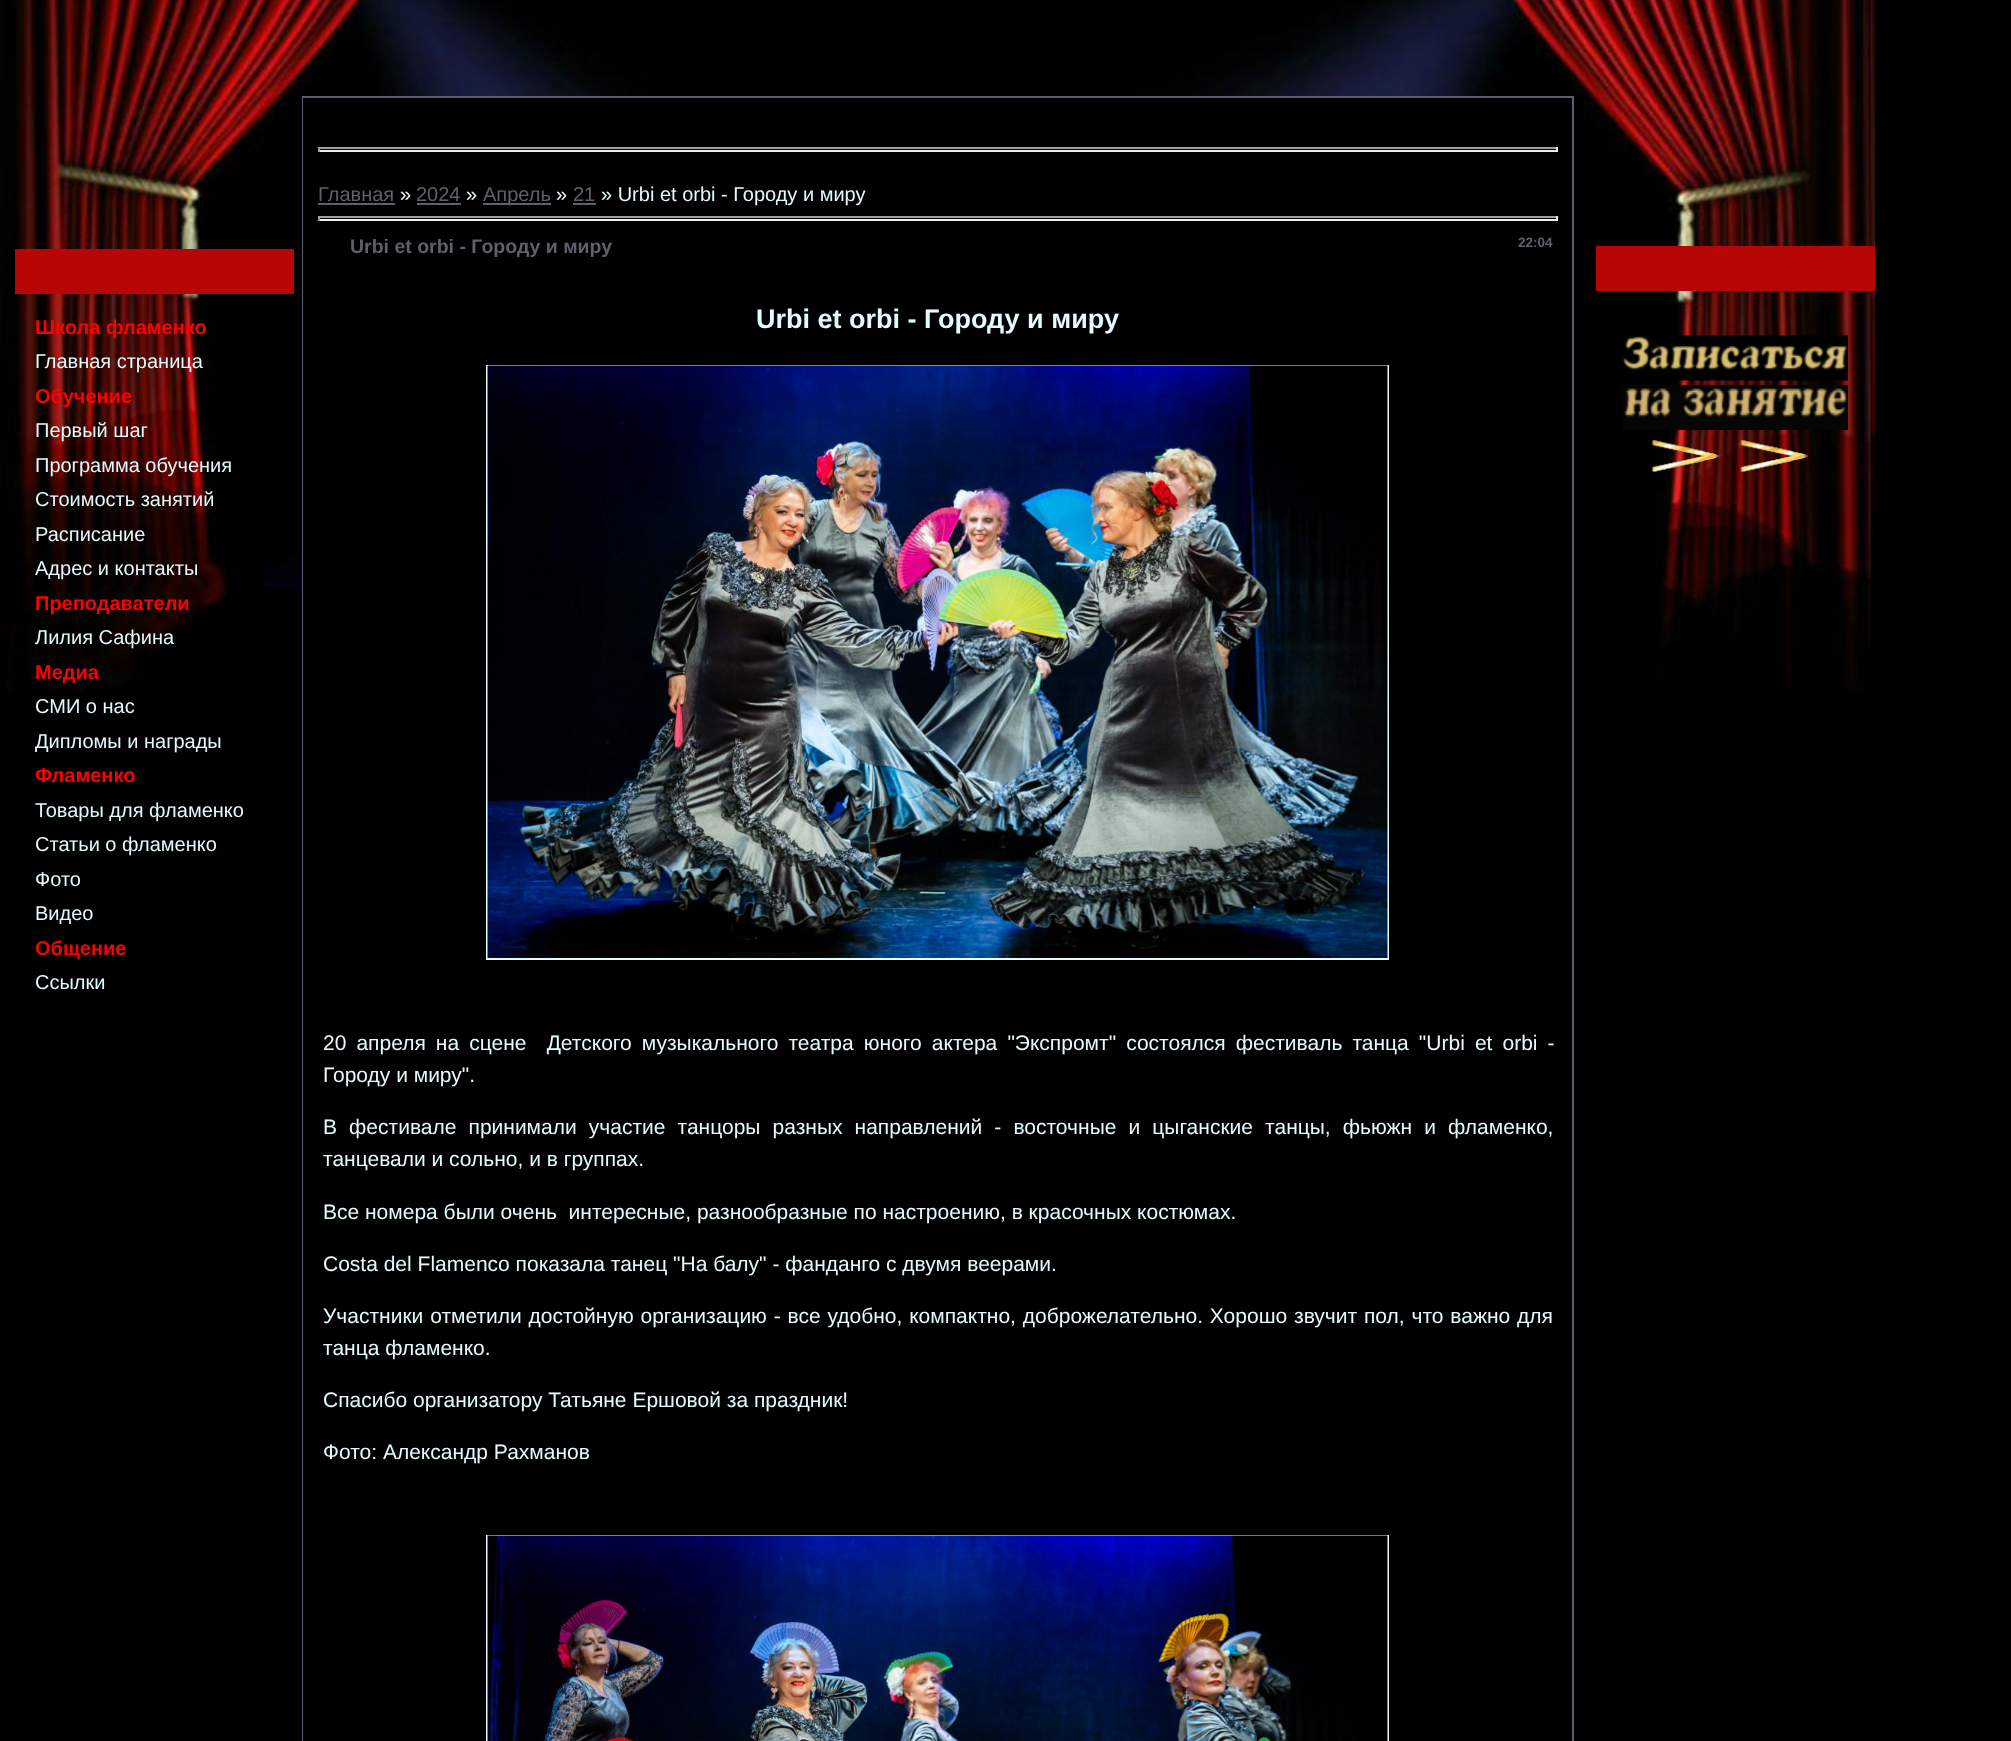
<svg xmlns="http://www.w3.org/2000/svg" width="2011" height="1741">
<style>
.a{font:bold 20px Liberation Sans;fill:#f00}
.b{font:20px Liberation Sans;fill:#e4fafd}
.c{font:20px Liberation Sans;fill:#60606b}
.d{font:bold 19.5px Liberation Sans;fill:#60606b}
.e{font:bold 13.5px Liberation Sans;fill:#60606b}
.f{font:bold 27px Liberation Sans;fill:#e4fafd}
.g{font:21px Liberation Sans;fill:#e4fafd}
</style>
<rect width="100%" height="100%" fill="#000"/>
<image href="1.png" x="0" y="0" width="1875" height="730"/>
<path fill="#b60605" d="M15 249h279v45H15z"/>
<path fill="none" stroke="#5b5c74" stroke-width="2" d="M303 97h1270v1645H303z"/>
<path fill="#000" d="M303 98h1269v1643H303z"/>
<path fill="#9f9f9f" d="M318 147h1239v2H318z"/>
<path fill="#eee" d="M1556 147h2v5H1556z"/>
<path fill="#eee" d="M318 150h1239v2H318z"/>
<path fill="#9f9f9f" d="M318 147h2v5H318z"/>
<path fill="#60606b" d="M318 203h77v2H318z"/>
<path fill="#60606b" d="M417 203h44v2H417z"/>
<path fill="#60606b" d="M483 203h68v2H483z"/>
<path fill="#60606b" d="M573 203h23v2H573z"/>
<path fill="#9f9f9f" d="M318 216h1239v2H318z"/>
<path fill="#eee" d="M1556 216h2v5H1556z"/>
<path fill="#eee" d="M318 219h1239v2H318z"/>
<path fill="#9f9f9f" d="M318 216h2v5H318z"/>
<path fill="none" stroke="#e4fafd" stroke-width="2" d="M487 366h901v593H487z"/>
<image href="2.png" x="487" y="365" width="901" height="593"/>
<path fill="none" stroke="#e4fafd" stroke-width="2" d="M487 1536h901v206H487z"/>
<image href="3.png" x="487" y="1535" width="901" height="206"/>
<path fill="#b60605" d="M1596 246h279v45H1596z"/>
<image href="4.png" x="1623" y="335" width="225" height="46"/>
<image href="5.png" x="1623" y="385" width="225" height="45"/>
<image href="6.png" x="1652" y="440" width="156" height="32"/>
<text class="a" x="35" y="334">Школа фламенко</text>
<text class="b" x="35" y="368">Главная страница</text>
<text class="a" x="35" y="403">Обучение</text>
<text class="b" x="35" y="437">Первый шаг</text>
<text class="b" x="35" y="472">Программа обучения</text>
<text class="b" x="35" y="506">Стоимость занятий</text>
<text class="b" x="35" y="541">Расписание</text>
<text class="b" x="35" y="575">Адрес и контакты</text>
<text class="a" x="35" y="610">Преподаватели</text>
<text class="b" x="35" y="644">Лилия Сафина</text>
<text class="a" x="35" y="679">Медиа</text>
<text class="b" x="35" y="713">СМИ о нас</text>
<text class="b" x="35" y="748">Дипломы и награды</text>
<text class="a" x="35" y="782">Фламенко</text>
<text class="b" x="35" y="817">Товары для фламенко</text>
<text class="b" x="35" y="851">Статьи о фламенко</text>
<text class="b" x="35" y="886">Фото</text>
<text class="b" x="35" y="920">Видео</text>
<text class="a" x="35" y="955">Общение</text>
<text class="b" x="35" y="989">Ссылки</text>
<text class="c" x="318" y="201">Главная</text>
<text class="b" x="400" y="201">»</text>
<text class="c" x="416" y="201">2024</text>
<text class="b" x="466" y="201">»</text>
<text class="c" x="483" y="201">Апрель</text>
<text class="b" x="556" y="201">»</text>
<text class="c" x="573" y="201">21</text>
<text class="b" x="601" y="201">» Urbi et orbi - Городу и миру</text>
<text class="d" x="350" y="253">Urbi et orbi - Городу и миру</text>
<text class="e" x="1518" y="247">22:04</text>
<text class="f" x="756" y="328">Urbi et orbi - Городу и миру</text>
<text class="g" xml:space="preserve" x="323" y="1050" word-spacing="4.25">20 апреля на сцене  Детского музыкального театра юного актера "Экспромт" состоялся фестиваль танца "Urbi et orbi -</text>
<text class="g" x="323" y="1082">Городу и миру".</text>
<text class="g" x="323" y="1134" word-spacing="6.25">В фестивале принимали участие танцоры разных направлений - восточные и цыганские танцы, фьюжн и фламенко,</text>
<text class="g" x="323" y="1166">танцевали и сольно, и в группах.</text>
<text class="g" xml:space="preserve" x="323" y="1219">Все номера были очень  интересные, разнообразные по настроению, в красочных костюмах.</text>
<text class="g" x="323" y="1271">Costa del Flamenco показала танец "На балу" - фанданго с двумя веерами.</text>
<text class="g" x="323" y="1323" word-spacing="1">Участники отметили достойную организацию - все удобно, компактно, доброжелательно. Хорошо звучит пол, что важно для</text>
<text class="g" x="323" y="1355">танца фламенко.</text>
<text class="g" x="323" y="1407">Спасибо организатору Татьяне Ершовой за праздник!</text>
<text class="g" x="323" y="1459">Фото: Александр Рахманов</text>
</svg>
